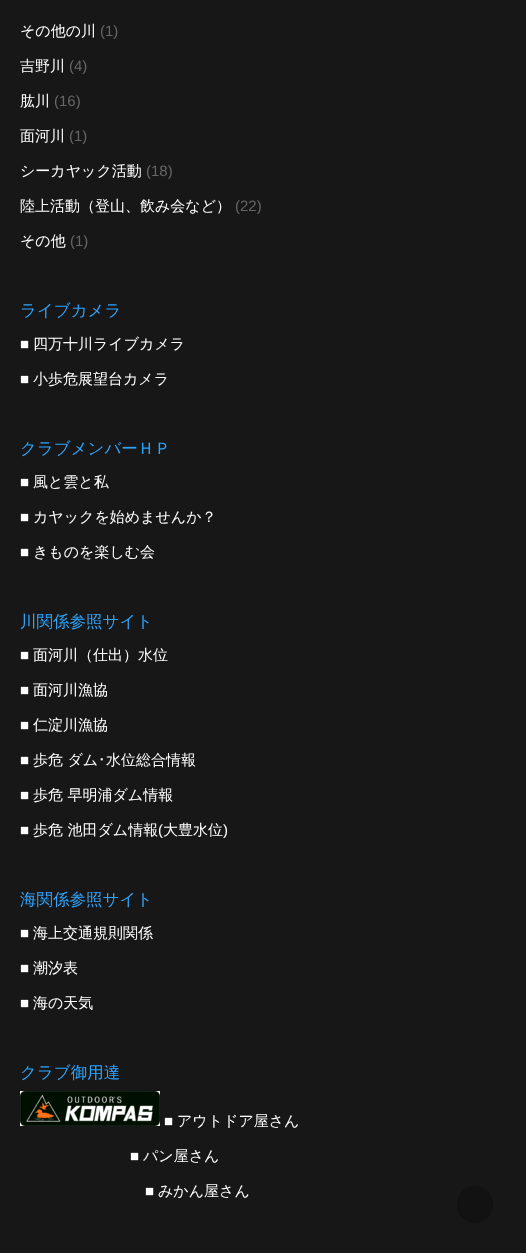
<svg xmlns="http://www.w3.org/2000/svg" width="526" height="1253">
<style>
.a{font:500 15px WenQuanYi Zen Hei;fill:#fff}
.b{font:15px Liberation Sans;fill:#666}
.c{font:500 16.5px WenQuanYi Zen Hei;fill:#2ea5fd}
.d{font:15px Liberation Sans;fill:#fff}
.e{font:15px IPAPGothic;fill:#fff}
</style>
<rect width="100%" height="100%" fill="#171717"/>
<image href="1.png" x="20" y="1091" width="140" height="35"/>
<rect fill="#121212" x="457" y="1186" width="36" height="37" rx="18"/>
<text class="a" x="20" y="36">その他の川</text>
<text class="b" x="100" y="36">(1)</text>
<text class="a" x="20" y="71">吉野川</text>
<text class="b" x="69" y="71">(4)</text>
<text class="a" x="20" y="106">肱川</text>
<text class="b" x="54" y="106">(16)</text>
<text class="a" x="20" y="141">面河川</text>
<text class="b" x="69" y="141">(1)</text>
<text class="a" x="20" y="176">シーカヤック活動</text>
<text class="b" x="146" y="176">(18)</text>
<text class="a" x="20" y="211">陸上活動（登山、飲み会など）</text>
<text class="b" x="235" y="211">(22)</text>
<text class="a" x="20" y="246">その他</text>
<text class="b" x="70" y="246">(1)</text>
<text class="c" x="20" y="316">ライブカメラ</text>
<text class="d" x="20" y="349">■</text>
<text class="a" x="33" y="349">四万十川ライブカメラ</text>
<text class="d" x="20" y="384">■</text>
<text class="a" x="33" y="384">小歩危展望台カメラ</text>
<text class="c" x="20" y="454">クラブメンバーＨＰ</text>
<text class="d" x="20" y="487">■</text>
<text class="a" x="33" y="487">風と雲と私</text>
<text class="d" x="20" y="522">■</text>
<text class="a" x="33" y="522">カヤックを始めませんか？</text>
<text class="d" x="20" y="557">■</text>
<text class="a" x="33" y="557">きものを楽しむ会</text>
<text class="c" x="20" y="627">川関係参照サイト</text>
<text class="d" x="20" y="660">■</text>
<text class="a" x="33" y="660">面河川（仕出）水位</text>
<text class="d" x="20" y="695">■</text>
<text class="a" x="33" y="695">面河川漁協</text>
<text class="d" x="20" y="730">■</text>
<text class="a" x="33" y="730">仁淀川漁協</text>
<text class="d" x="20" y="765">■</text>
<text class="a" x="33" y="765">歩危 ダム</text>
<text class="e" x="98" y="765">･</text>
<text class="a" x="106" y="765">水位総合情報</text>
<text class="d" x="20" y="800">■</text>
<text class="a" x="33" y="800">歩危 早明浦ダム情報</text>
<text class="d" x="20" y="835">■</text>
<text class="a" x="33" y="835">歩危 池田ダム情報</text>
<text class="d" x="158" y="835">(</text>
<text class="a" x="163" y="835">大豊水位</text>
<text class="d" x="223" y="835">)</text>
<text class="c" x="20" y="905">海関係参照サイト</text>
<text class="d" x="20" y="938">■</text>
<text class="a" x="33" y="938">海上交通規則関係</text>
<text class="d" x="20" y="973">■</text>
<text class="a" x="33" y="973">潮汐表</text>
<text class="d" x="20" y="1008">■</text>
<text class="a" x="33" y="1008">海の天気</text>
<text class="c" x="20" y="1078">クラブ御用達</text>
<text class="d" x="164" y="1126">■</text>
<text class="a" x="177" y="1126">アウトドア屋さん</text>
<text class="d" x="130" y="1161">■</text>
<text class="a" x="143" y="1161">パン屋さん</text>
<text class="d" x="145" y="1196">■</text>
<text class="a" x="158" y="1196">みかん屋さん</text>
</svg>
